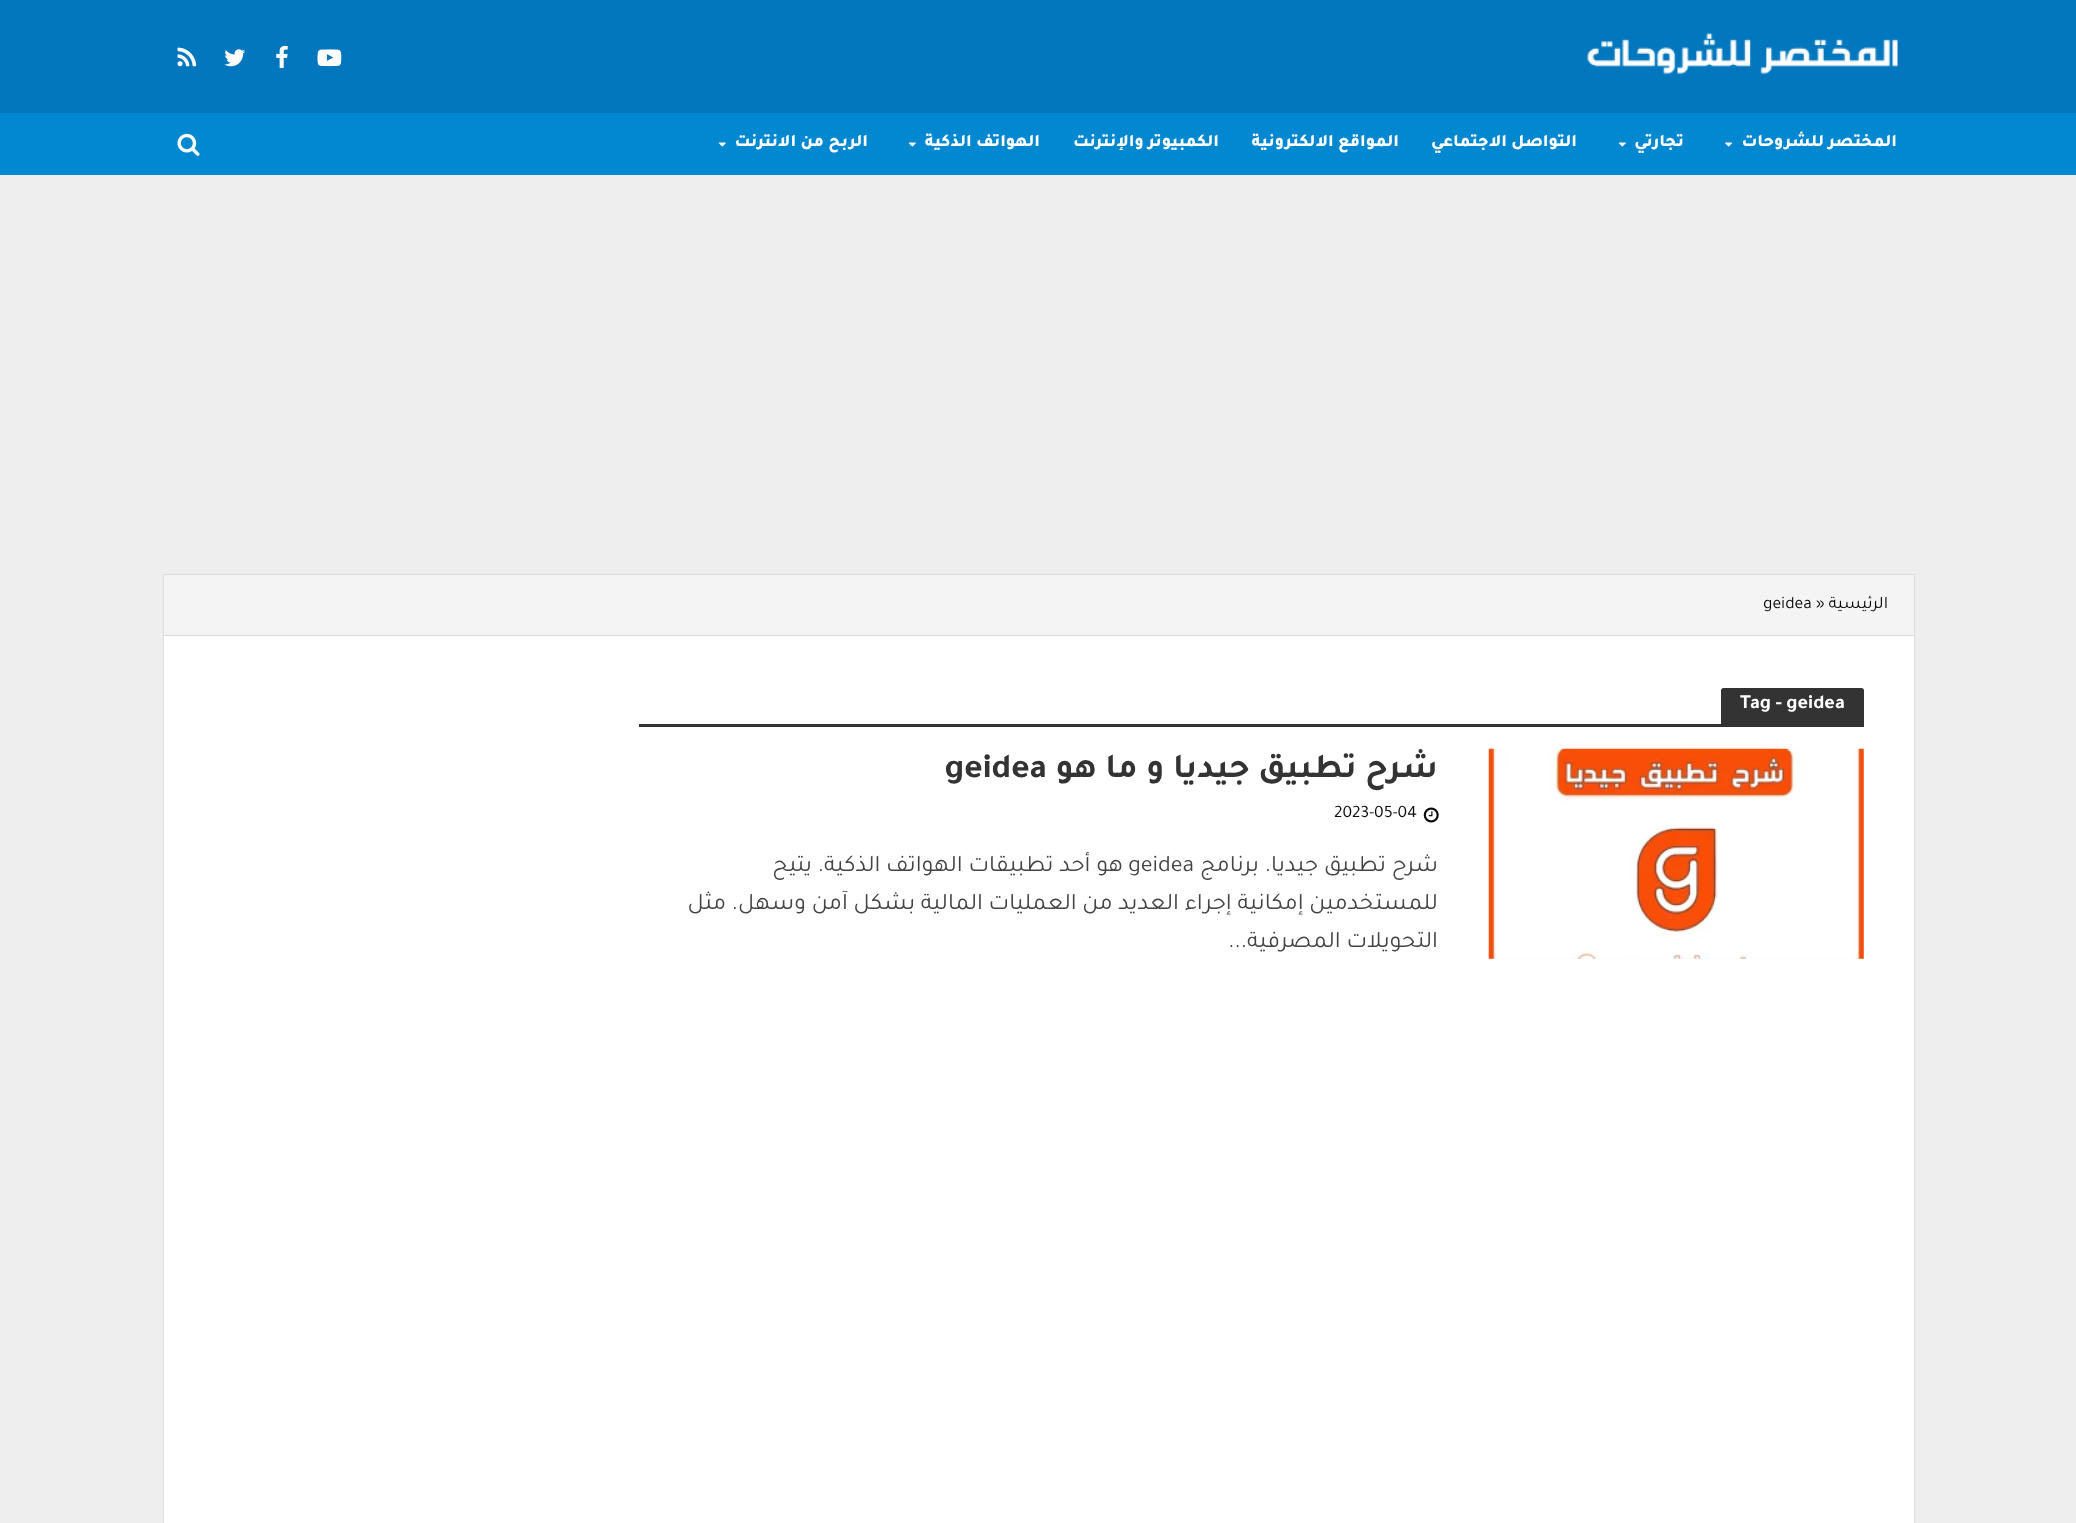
<svg xmlns="http://www.w3.org/2000/svg" width="2076" height="1523">
<style>
.a{font:800 17.5px Tajawal;direction:rtl;fill:#fff}
.b{font:17.5px Tajawal;direction:rtl;fill:#0a0a0a}
.c{font:17.5px Tajawal;fill:#0a0a0a}
.d{font:bold 20px Tajawal;fill:#fff}
.e{font:bold 35px Tajawal;direction:rtl;fill:#333}
.f{font:bold 35px Tajawal;fill:#333}
.g{font:23.75px Tajawal;direction:rtl;fill:#444}
.h{font:23.75px Tajawal;fill:#444}
</style>
<rect width="100%" height="100%" fill="#eee"/>
<path fill="#0277bd" d="M0 0h2076v113H0z"/>
<image href="1.png" x="1586" y="32" width="312" height="42"/>
<image href="2.png" x="317" y="49" width="25" height="18"/>
<image href="3.png" x="276" y="45" width="12" height="23"/>
<image href="4.png" x="224" y="49" width="21" height="18"/>
<image href="5.png" x="177" y="47" width="20" height="20"/>
<path fill="#0288d1" d="M0 113h2076v62H0z"/>
<image href="6.png" x="1725" y="142" width="8" height="5"/>
<image href="7.png" x="1618" y="142" width="8" height="5"/>
<image href="7.png" x="908" y="142" width="8" height="5"/>
<image href="7.png" x="718" y="142" width="8" height="5"/>
<image href="8.png" x="177" y="133" width="23" height="23"/>
<path fill="none" stroke="#ddd" d="M163.5 574.5h1751v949H163.5z"/>
<path fill="#fff" d="M164 636h1750v887H164z"/>
<path fill="#f4f4f4" d="M164 575h1750v60H164z"/>
<path fill="#dadada" d="M164 635h1750v1H164z"/>
<path fill="#333" d="M1723.5 688h138c1.5 0 2.5 1 2.5 2.5v33.5h-143v-33.5c0-1.5 1-2.5 2.5-2.5z"/>
<path fill="#333" d="M639 724h1225v3H639z"/>
<path fill="#f2f2f2" d="M1489 749h375v210H1489z"/>
<image href="9.png" x="1488" y="748" width="376" height="211"/>
<image href="10.png" x="1423" y="807" width="16" height="16"/>
<text class="a" x="1897" y="146">المختصر للشروحات</text>
<text class="a" x="1684" y="146">تجارتي</text>
<text class="a" x="1577" y="146">التواصل الاجتماعي</text>
<text class="a" x="1399" y="146">المواقع الالكترونية</text>
<text class="a" x="1219" y="146">الكمبيوتر والإنترنت</text>
<text class="a" x="1040" y="146">الهواتف الذكية</text>
<text class="a" x="868" y="146">الربح من الانترنت</text>
<text class="b" x="1888" y="608">الرئيسية</text>
<text class="c" x="1816" y="608">»</text>
<text class="c" x="1763" y="608">geidea</text>
<text class="d" x="1740" y="708">Tag - geidea</text>
<text class="e" x="1438" y="777">شرح تطبيق جيديا و ما هو</text>
<text class="f" x="945" y="777">geidea</text>
<text class="c" x="1334" y="817">2023-05-04</text>
<text class="g" x="1438" y="871">شرح تطبيق جيديا. برنامج</text>
<text class="h" x="1128" y="871">geidea</text>
<text class="g" x="1123" y="871">هو أحد تطبيقات الهواتف الذكية. يتيح</text>
<text class="g" x="1438" y="909">للمستخدمين إمكانية إجراء العديد من العمليات المالية بشكل آمن وسهل. مثل</text>
<text class="g" x="1438" y="947">التحويلات المصرفية...</text>
</svg>
